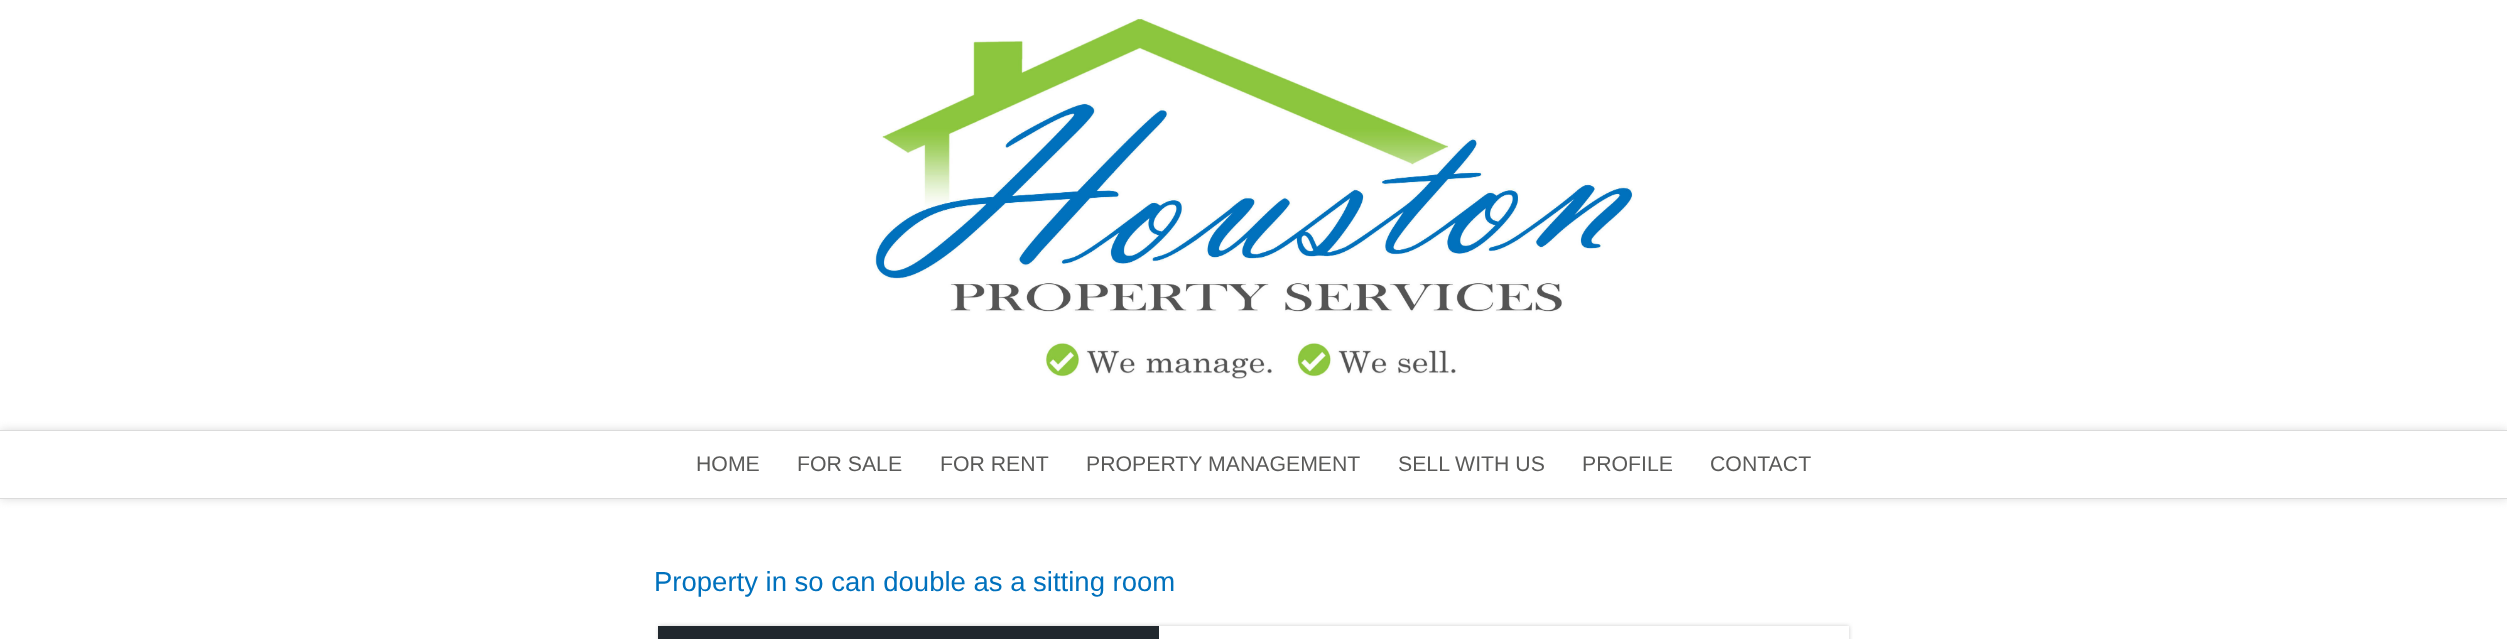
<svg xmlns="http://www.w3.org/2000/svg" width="2507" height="639">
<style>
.a{font:21.25px Liberation Sans;fill:#5a5a59}
.b{font:27.5px Liberation Sans;fill:#0071bd}
</style>
<defs>
<clipPath id="clip1"><path d="M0 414h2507v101h-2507zm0 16h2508v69h-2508z" clip-rule="evenodd"/></clipPath>
</defs>
<rect width="100%" height="100%" fill="#fff"/>
<image href="1.png" x="874" y="17" width="759" height="362"/>
<g clip-path="url(#clip1)">
<path fill="#dbdbdb" filter="blur(5px)" d="M0 430h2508v69H0z"/>
</g>
<path fill="#dbdbdb" d="M0 430h2507v1H0z"/>
<path fill="#dbdbdb" d="M0 498h2507v1H0z"/>
<path fill="#ccc" filter="blur(2px)" d="M659 626h1190v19H659z"/>
<path fill="#fff" d="M1159 626h690v13H1159z"/>
<path fill="#21282e" d="M658 626h501v13H658z"/>
<text class="a" x="696" y="471">HOME</text>
<text class="a" x="797" y="471">FOR SALE</text>
<text class="a" x="940" y="471">FOR RENT</text>
<text class="a" x="1086" y="471">PROPERTY MANAGEMENT</text>
<text class="a" x="1398" y="471">SELL WITH US</text>
<text class="a" x="1582" y="471">PROFILE</text>
<text class="a" x="1710" y="471">CONTACT</text>
<text class="b" x="654" y="591">Property in so can double as a sitting room</text>
</svg>
